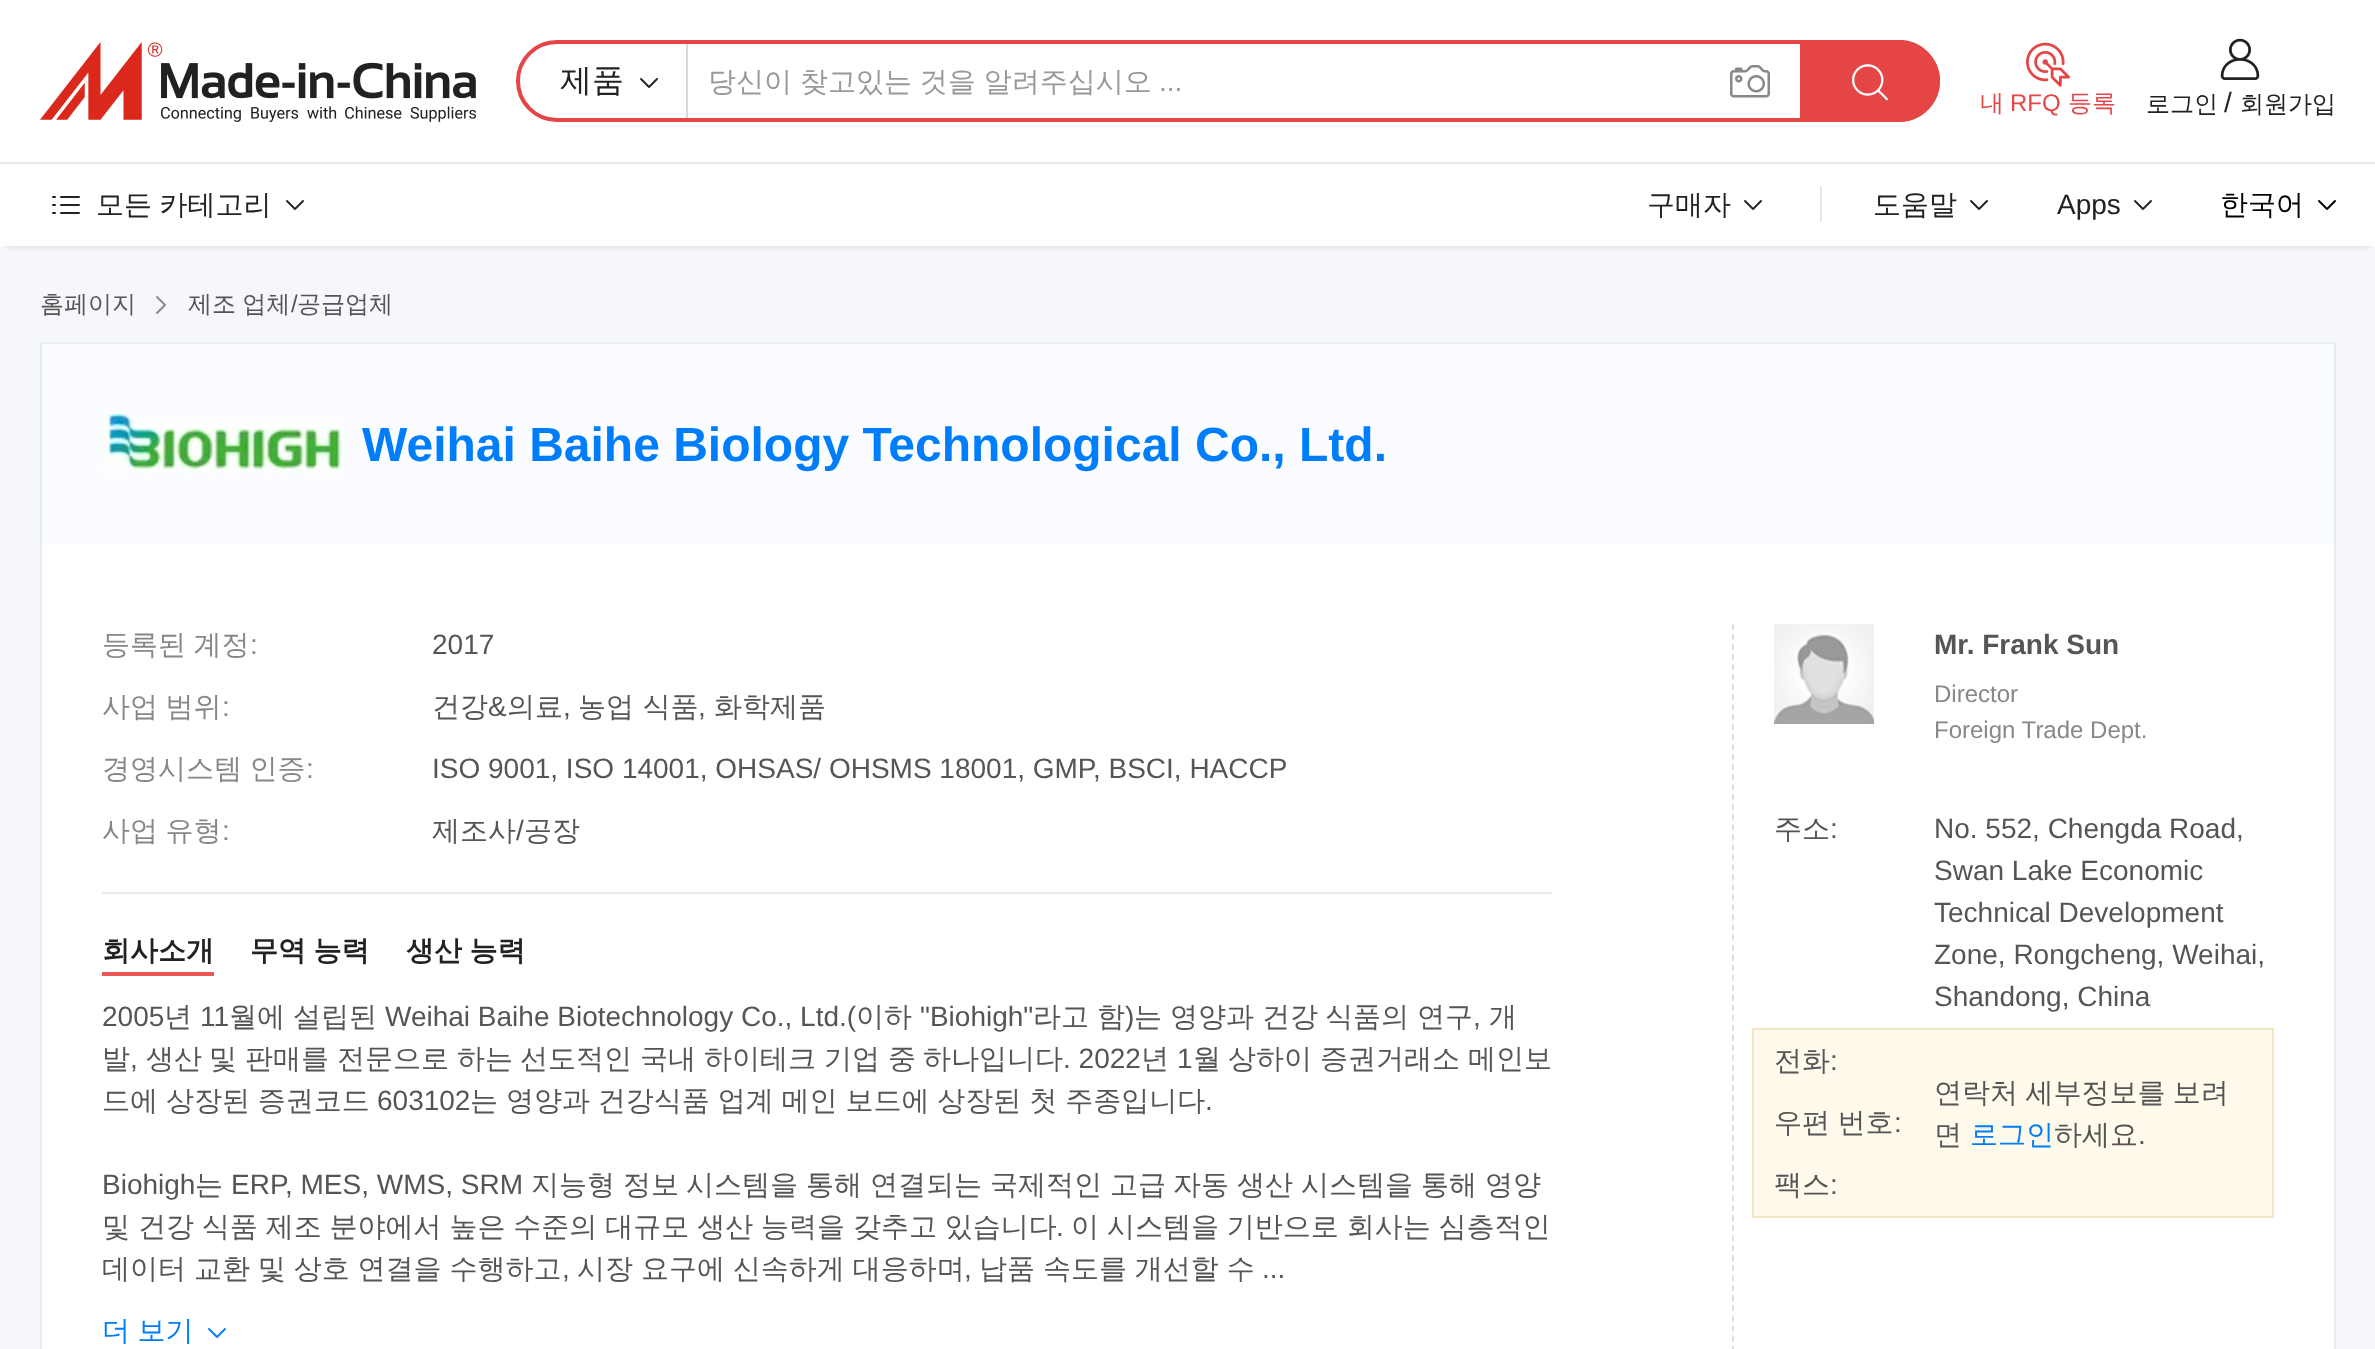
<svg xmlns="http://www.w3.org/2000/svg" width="2375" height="1349">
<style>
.a{font:500 32px WenQuanYi Zen Hei;fill:#222}
.b{font:500 28px WenQuanYi Zen Hei;fill:#999}
.c{font:28px Liberation Sans;fill:#999}
.d{font:500 24px WenQuanYi Zen Hei;fill:#e64545}
.e{font:24px Liberation Sans;fill:#e64545}
.f{font:500 24px WenQuanYi Zen Hei;fill:#222}
.g{font:28px Liberation Sans;fill:#222}
.h{font:500 28px WenQuanYi Zen Hei;fill:#222}
.i{font:500 28px WenQuanYi Zen Hei;fill:#000}
.j{font:500 24px WenQuanYi Zen Hei;fill:#555}
.k{font:24px Liberation Sans;fill:#555}
.l{font:bold 48px Liberation Sans;fill:#007dfa}
.m{font:500 28px WenQuanYi Zen Hei;fill:#888}
.n{font:28px Liberation Sans;fill:#888}
.o{font:28px Liberation Sans;fill:#555}
.p{font:500 28px WenQuanYi Zen Hei;fill:#555}
.q{font:bold 28px WenQuanYi Zen Hei;fill:#222}
.r{font:500 28px WenQuanYi Zen Hei;fill:#007dfa}
.s{font:bold 28px Liberation Sans;fill:#555}
.t{font:24px Liberation Sans;fill:#888}
</style>
<defs>
<clipPath id="clip1"><path d="M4 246h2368v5H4z"/></clipPath>
</defs>
<rect width="100%" height="100%" fill="#fff"/>
<path fill="#f5f7fa" d="M0 246h2375v1103H0z"/>
<g clip-path="url(#clip1)">
<path fill="#0000001f" filter="blur(5px)" d="M6 12h2364v234H6z"/>
</g>
<image href="1.png" x="40" y="42" width="436" height="80"/>
<rect fill="none" stroke="#e64545" stroke-width="4" x="518" y="42" width="1420" height="78" rx="39"/>
<path fill="#dadada" d="M686 44h2v74H686z"/>
<image href="2.png" x="640" y="78" width="18" height="10"/>
<image href="3.png" x="1730" y="65" width="40" height="33"/>
<path fill="#e64545" d="M1800 40h99c22.5 0 41 18.5 41 41c0 22.5-18.5 41-41 41h-99z"/>
<image href="4.png" x="1852" y="64" width="36" height="37"/>
<image href="5.png" x="2026" y="42" width="44" height="45"/>
<image href="6.png" x="2220" y="38" width="40" height="42"/>
<path fill="#e6e7eb" d="M0 162h2375v2H0z"/>
<image href="7.png" x="52" y="196" width="28" height="18"/>
<image href="2.png" x="286" y="200" width="18" height="10"/>
<image href="2.png" x="1744" y="200" width="18" height="10"/>
<path fill="#e6e7eb" d="M1820 186h2v36H1820z"/>
<image href="2.png" x="1970" y="200" width="18" height="10"/>
<image href="2.png" x="2134" y="200" width="18" height="10"/>
<image href="8.png" x="2318" y="200" width="18" height="10"/>
<image href="9.png" x="156" y="296" width="10" height="18"/>
<path fill="#fff" d="M42 544h2292v805H42z"/>
<path fill="none" stroke="#e6ecf2" stroke-width="2" d="M41 343h2294v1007H41z"/>
<path fill="#fafcff" d="M42 344h2292v200H42z"/>
<image href="10.png" x="102" y="414" width="240" height="60"/>
<path fill="none" stroke="#dae0e6" stroke-width="2" stroke-dasharray="6 4.02" d="M1733 624v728"/>
<path fill="#e6ecf2" d="M102 892h1450v2H102z"/>
<path fill="#eb5757" d="M102 972h112v4H102z"/>
<image href="11.png" x="208" y="1328" width="18" height="10"/>
<image href="12.png" x="1774" y="624" width="100" height="100"/>
<path fill="#fffaeb" stroke="#f2e6c2" stroke-width="2" d="M1753 1029h520v188H1753z"/>
<text class="a" x="560" y="91">제품</text>
<text class="b" x="708" y="91" word-spacing="-0.5">당신이 찾고있는 것을 알려주십시오</text>
<text class="c" x="1159" y="91">...</text>
<text class="d" x="1980" y="111">내</text>
<text class="e" x="2010" y="111">RFQ</text>
<text class="d" x="2068" y="111">등록</text>
<text class="f" x="2146" y="112">로그인</text>
<text class="g" x="2224" y="112">/</text>
<text class="f" x="2240" y="112">회원가입</text>
<text class="h" x="96" y="214" word-spacing="-1">모든 카테고리</text>
<text class="h" x="1647" y="214">구매자</text>
<text class="h" x="1873" y="214">도움말</text>
<text class="g" x="2057" y="214">Apps</text>
<text class="i" x="2220" y="214">한국어</text>
<text class="j" x="40" y="312">홈페이지</text>
<text class="j" x="188" y="312" word-spacing="-1">제조 업체</text>
<text class="k" x="291" y="312">/</text>
<text class="j" x="297" y="312">공급업체</text>
<text class="l" x="362" y="461">Weihai Baihe Biology Technological Co., Ltd.</text>
<text class="m" x="102" y="654" word-spacing="-1">등록된 계정</text>
<text class="n" x="250" y="654">:</text>
<text class="o" x="432" y="654">2017</text>
<text class="m" x="102" y="716" word-spacing="-1">사업 범위</text>
<text class="n" x="222" y="716">:</text>
<text class="p" x="432" y="716">건강</text>
<text class="o" x="488" y="716">&amp;</text>
<text class="p" x="507" y="716">의료</text>
<text class="o" x="563" y="716">,</text>
<text class="p" x="578" y="716">농업 식품</text>
<text class="o" x="698" y="716">,</text>
<text class="p" x="714" y="716">화학제품</text>
<text class="m" x="102" y="778" word-spacing="-1">경영시스템 인증</text>
<text class="n" x="306" y="778">:</text>
<text class="o" x="432" y="778">ISO 9001, ISO 14001, OHSAS/ OHSMS 18001, GMP, BSCI, HACCP</text>
<text class="m" x="102" y="840" word-spacing="-1">사업 유형</text>
<text class="n" x="222" y="840">:</text>
<text class="p" x="432" y="840">제조사</text>
<text class="o" x="516" y="840">/</text>
<text class="p" x="524" y="840">공장</text>
<text class="q" x="102" y="960">회사소개</text>
<text class="q" x="250" y="960" word-spacing="-1">무역 능력</text>
<text class="q" x="406" y="960" word-spacing="-1">생산 능력</text>
<text class="o" x="102" y="1026">2005</text>
<text class="p" x="164" y="1026">년</text>
<text class="o" x="200" y="1026">11</text>
<text class="p" x="229" y="1026">월에</text>
<text class="p" x="293" y="1026">설립된</text>
<text class="o" x="385" y="1026">Weihai Baihe Biotechnology Co., Ltd.(</text>
<text class="p" x="856" y="1026">이하</text>
<text class="o" x="920" y="1026">"Biohigh"</text>
<text class="p" x="1033" y="1026">라고</text>
<text class="p" x="1097" y="1026">함</text>
<text class="o" x="1125" y="1026">)</text>
<text class="p" x="1134" y="1026">는</text>
<text class="p" x="1170" y="1026">영양과</text>
<text class="p" x="1262" y="1026">건강</text>
<text class="p" x="1325" y="1026">식품의</text>
<text class="p" x="1417" y="1026">연구</text>
<text class="o" x="1473" y="1026">,</text>
<text class="p" x="1489" y="1026">개</text>
<text class="p" x="102" y="1068">발</text>
<text class="o" x="130" y="1068">,</text>
<text class="p" x="146" y="1068">생산</text>
<text class="p" x="209" y="1068">및</text>
<text class="p" x="245" y="1068">판매를</text>
<text class="p" x="337" y="1068">전문으로</text>
<text class="p" x="457" y="1068">하는</text>
<text class="p" x="520" y="1068">선도적인</text>
<text class="p" x="640" y="1068">국내</text>
<text class="p" x="704" y="1068">하이테크</text>
<text class="p" x="824" y="1068">기업</text>
<text class="p" x="888" y="1068">중</text>
<text class="p" x="923" y="1068">하나입니다</text>
<text class="o" x="1063" y="1068">. 2022</text>
<text class="p" x="1141" y="1068">년</text>
<text class="o" x="1177" y="1068">1</text>
<text class="p" x="1193" y="1068">월</text>
<text class="p" x="1228" y="1068">상하이</text>
<text class="p" x="1320" y="1068">증권거래소</text>
<text class="p" x="1468" y="1068">메인보</text>
<text class="p" x="102" y="1110" word-spacing="-0.5">드에 상장된 증권코드</text>
<text class="o" x="377" y="1110">603102</text>
<text class="p" x="470" y="1110" word-spacing="-0.5">는 영양과 건강식품 업계 메인 보드에 상장된 첫 주종입니다</text>
<text class="o" x="1205" y="1110">.</text>
<text class="o" x="102" y="1194">Biohigh</text>
<text class="p" x="195" y="1194">는</text>
<text class="o" x="231" y="1194">ERP, MES, WMS, SRM</text>
<text class="p" x="531" y="1194">지능형</text>
<text class="p" x="623" y="1194">정보</text>
<text class="p" x="686" y="1194">시스템을</text>
<text class="p" x="806" y="1194">통해</text>
<text class="p" x="870" y="1194">연결되는</text>
<text class="p" x="990" y="1194">국제적인</text>
<text class="p" x="1110" y="1194">고급</text>
<text class="p" x="1173" y="1194">자동</text>
<text class="p" x="1237" y="1194">생산</text>
<text class="p" x="1301" y="1194">시스템을</text>
<text class="p" x="1421" y="1194">통해</text>
<text class="p" x="1485" y="1194">영양</text>
<text class="p" x="102" y="1236" word-spacing="-0.5">및 건강 식품 제조 분야에서 높은 수준의 대규모 생산 능력을 갖추고 있습니다</text>
<text class="o" x="1056" y="1236">.</text>
<text class="p" x="1071" y="1236" word-spacing="-0.5">이 시스템을 기반으로 회사는 심층적인</text>
<text class="p" x="102" y="1278" word-spacing="-0.5">데이터 교환 및 상호 연결을 수행하고</text>
<text class="o" x="562" y="1278">,</text>
<text class="p" x="577" y="1278" word-spacing="-0.5">시장 요구에 신속하게 대응하며</text>
<text class="o" x="964" y="1278">,</text>
<text class="p" x="979" y="1278" word-spacing="-0.5">납품 속도를 개선할 수</text>
<text class="o" x="1262" y="1278">...</text>
<text class="r" x="102" y="1340" word-spacing="-1">더 보기</text>
<text class="s" x="1934" y="654">Mr. Frank Sun</text>
<text class="t" x="1934" y="702">Director</text>
<text class="t" x="1934" y="738">Foreign Trade Dept.</text>
<text class="p" x="1774" y="838">주소</text>
<text class="o" x="1830" y="838">:</text>
<text class="o" x="1934" y="838">No. 552, Chengda Road,</text>
<text class="o" x="1934" y="880">Swan Lake Economic</text>
<text class="o" x="1934" y="922">Technical Development</text>
<text class="o" x="1934" y="964">Zone, Rongcheng, Weihai,</text>
<text class="o" x="1934" y="1006">Shandong, China</text>
<text class="p" x="1774" y="1070">전화</text>
<text class="o" x="1830" y="1070">:</text>
<text class="p" x="1774" y="1132" word-spacing="-1">우편 번호</text>
<text class="o" x="1894" y="1132">:</text>
<text class="p" x="1774" y="1194">팩스</text>
<text class="o" x="1830" y="1194">:</text>
<text class="p" x="1934" y="1102" word-spacing="-1">연락처 세부정보를 보려</text>
<text class="p" x="1934" y="1144">면</text>
<text class="r" x="1970" y="1144">로그인</text>
<text class="p" x="2054" y="1144">하세요</text>
<text class="o" x="2138" y="1144">.</text>
</svg>
